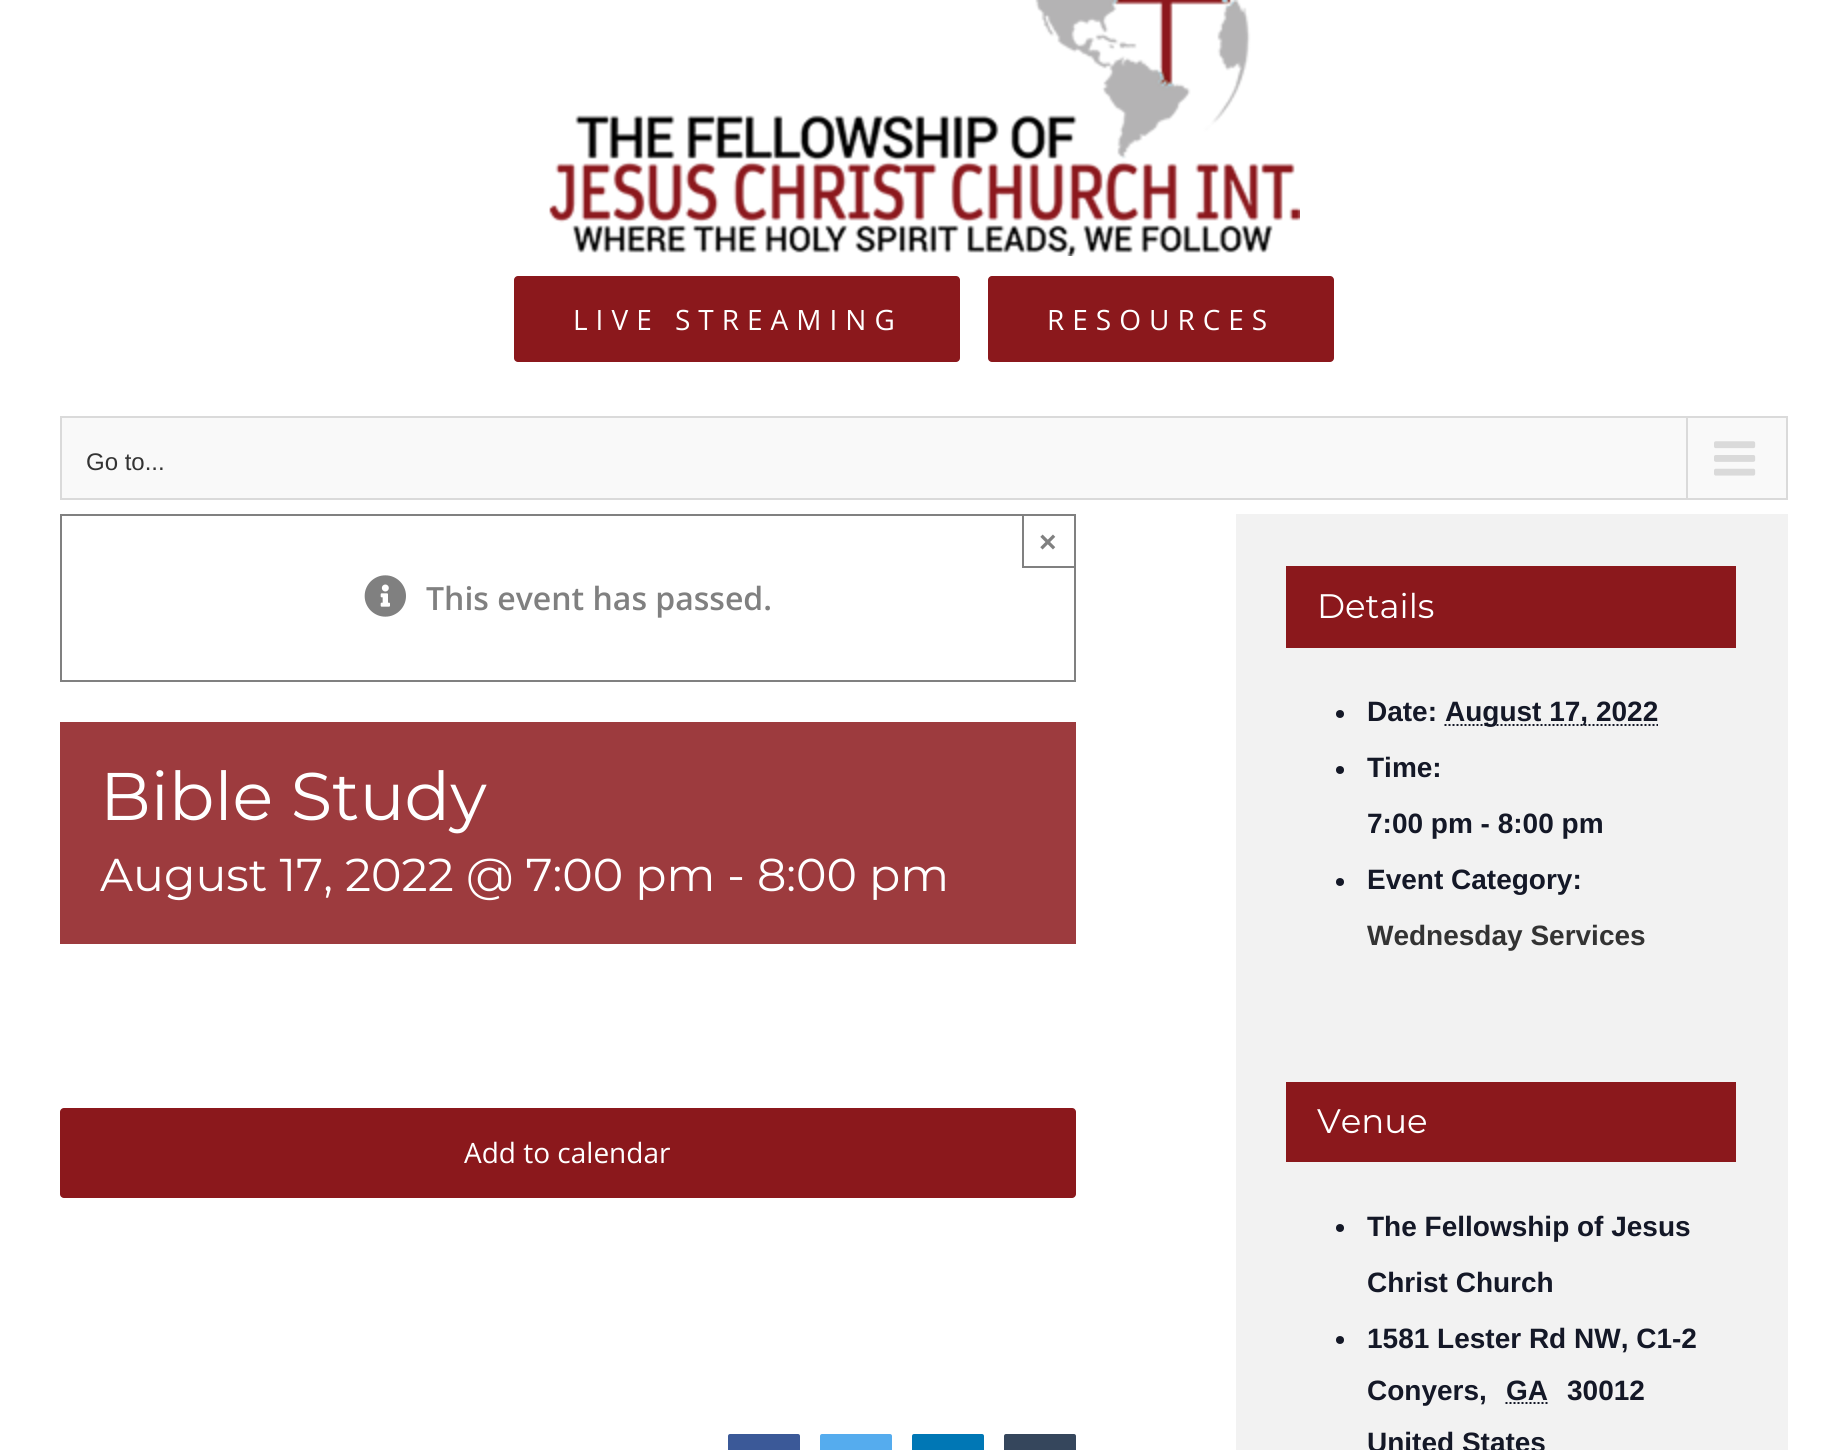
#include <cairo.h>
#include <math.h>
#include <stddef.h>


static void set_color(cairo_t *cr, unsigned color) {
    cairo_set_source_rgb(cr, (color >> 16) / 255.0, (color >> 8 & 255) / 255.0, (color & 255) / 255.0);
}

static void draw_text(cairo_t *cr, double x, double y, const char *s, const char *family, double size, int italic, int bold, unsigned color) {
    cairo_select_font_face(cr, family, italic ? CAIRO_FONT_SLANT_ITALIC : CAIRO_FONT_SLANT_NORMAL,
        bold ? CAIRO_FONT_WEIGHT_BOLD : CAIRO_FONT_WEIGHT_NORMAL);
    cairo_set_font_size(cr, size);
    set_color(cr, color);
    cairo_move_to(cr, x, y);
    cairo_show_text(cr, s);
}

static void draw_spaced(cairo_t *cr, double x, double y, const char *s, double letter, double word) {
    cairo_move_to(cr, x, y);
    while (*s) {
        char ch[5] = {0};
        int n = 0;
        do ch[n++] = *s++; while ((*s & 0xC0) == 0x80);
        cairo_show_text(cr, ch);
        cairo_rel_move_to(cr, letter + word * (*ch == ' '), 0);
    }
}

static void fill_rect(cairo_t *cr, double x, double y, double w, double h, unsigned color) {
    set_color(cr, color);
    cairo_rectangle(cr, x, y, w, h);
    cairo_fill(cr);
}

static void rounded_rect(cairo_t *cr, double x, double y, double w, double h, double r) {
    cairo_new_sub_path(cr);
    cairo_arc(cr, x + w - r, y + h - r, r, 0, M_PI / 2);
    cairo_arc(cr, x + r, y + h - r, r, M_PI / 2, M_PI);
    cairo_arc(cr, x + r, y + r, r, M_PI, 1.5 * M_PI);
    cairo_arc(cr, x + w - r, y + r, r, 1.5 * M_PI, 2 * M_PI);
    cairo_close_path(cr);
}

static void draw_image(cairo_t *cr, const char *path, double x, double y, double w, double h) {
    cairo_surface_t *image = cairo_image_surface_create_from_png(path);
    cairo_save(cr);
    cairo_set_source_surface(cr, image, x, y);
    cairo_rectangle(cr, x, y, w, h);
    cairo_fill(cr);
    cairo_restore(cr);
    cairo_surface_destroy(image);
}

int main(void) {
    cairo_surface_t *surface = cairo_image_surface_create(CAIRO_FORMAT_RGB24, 1848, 1450);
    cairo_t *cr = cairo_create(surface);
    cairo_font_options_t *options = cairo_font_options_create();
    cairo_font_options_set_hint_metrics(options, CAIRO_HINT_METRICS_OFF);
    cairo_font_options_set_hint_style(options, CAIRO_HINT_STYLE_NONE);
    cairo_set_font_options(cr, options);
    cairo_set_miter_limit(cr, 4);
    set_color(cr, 0xFFFFFF);
    cairo_paint(cr);
    draw_image(cr, "assets/img1.png", 549, 0, 751, 256);
    set_color(cr, 0x8B181C);
    rounded_rect(cr, 514, 276, 446, 86, 4);
    cairo_fill(cr);
    cairo_select_font_face(cr, "Open Sans", CAIRO_FONT_SLANT_NORMAL, CAIRO_FONT_WEIGHT_NORMAL);
    cairo_set_font_size(cr, 28);
    set_color(cr, 0xFFFFFF);
    draw_spaced(cr, 573, 330, "LIVE STREAMING", 8, 0);
    set_color(cr, 0x8B181C);
    rounded_rect(cr, 988, 276, 346, 86, 4);
    cairo_fill(cr);
    set_color(cr, 0xFFFFFF);
    draw_spaced(cr, 1047, 330, "RESOURCES", 8, 0);
    set_color(cr, 0xF9F9F9);
    cairo_rectangle(cr, 61, 417, 1726, 82);
    cairo_fill_preserve(cr);
    set_color(cr, 0xDADADA);
    cairo_stroke(cr);
    draw_text(cr, 86, 470, "Go to...", "Liberation Sans", 24, 0, 0, 0x333333);
    fill_rect(cr, 1686, 418, 2, 80, 0xDADADA);
    draw_image(cr, "assets/img2.png", 1714, 441, 42, 35);
    cairo_rectangle(cr, 61, 515, 1014, 166);
    set_color(cr, 0x808080);
    cairo_stroke(cr);
    cairo_rectangle(cr, 1023, 515, 52, 52);
    cairo_stroke(cr);
    draw_text(cr, 1039, 552, "×", "Liberation Sans", 30, 0, 1, 0x808080);
    draw_image(cr, "assets/img3.png", 364, 575, 42, 42);
    draw_text(cr, 426, 610, "This event has passed.", "Open Sans SemiBold", 32, 0, 0, 0x808080);
    fill_rect(cr, 60, 722, 1016, 222, 0x9D3B3E);
    draw_text(cr, 100, 820, "Bible Study", "Montserrat Thin", 67.25, 0, 0, 0xFFFFFF);
    draw_text(cr, 100, 891, "August 17, 2022 @ 7:00 pm - 8:00 pm", "Montserrat Thin", 46, 0, 0, 0xFFFFFF);
    set_color(cr, 0x8B181C);
    rounded_rect(cr, 60, 1108, 1016, 90, 4);
    cairo_fill(cr);
    draw_text(cr, 464, 1163, "Add to calendar", "Open Sans", 28, 0, 0, 0xFFFFFF);
    set_color(cr, 0x3B5998);
    rounded_rect(cr, 729, 1435, 70, 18, 1);
    cairo_fill_preserve(cr);
    cairo_stroke(cr);
    set_color(cr, 0x55ACEE);
    rounded_rect(cr, 821, 1435, 70, 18, 1);
    cairo_fill_preserve(cr);
    cairo_stroke(cr);
    set_color(cr, 0x0077B5);
    rounded_rect(cr, 913, 1435, 70, 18, 1);
    cairo_fill_preserve(cr);
    cairo_stroke(cr);
    set_color(cr, 0x35465C);
    rounded_rect(cr, 1005, 1435, 70, 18, 1);
    cairo_fill_preserve(cr);
    cairo_stroke(cr);
    fill_rect(cr, 1236, 514, 552, 936, 0xF2F2F2);
    fill_rect(cr, 1286, 566, 450, 82, 0x8B181C);
    draw_text(cr, 1317, 618, "Details", "Montserrat Thin", 34, 0, 0, 0xFFFFFF);
    set_color(cr, 0x141827);
    cairo_new_path(cr);
    cairo_arc(cr, 1340, 714, 4, 0, 2 * M_PI);
    cairo_fill(cr);
    draw_text(cr, 1367, 721, "Date:", "Liberation Sans", 28, 0, 1, 0x141827);
    cairo_new_path(cr);
    cairo_move_to(cr, 1444.5, 725);
    cairo_line_to(cr, 1658, 725);
    cairo_set_dash(cr, (double[]){2, 2}, 2, 0);
    cairo_stroke(cr);
    draw_text(cr, 1445, 721, "August 17, 2022", "Liberation Sans", 28, 0, 1, 0x141827);
    cairo_new_path(cr);
    cairo_arc(cr, 1340, 770, 4, 0, 2 * M_PI);
    cairo_fill(cr);
    draw_text(cr, 1367, 777, "Time:", "Liberation Sans", 28, 0, 1, 0x141827);
    draw_text(cr, 1367, 833, "7:00 pm - 8:00 pm", "Liberation Sans", 28, 0, 1, 0x141827);
    cairo_new_path(cr);
    cairo_arc(cr, 1340, 882, 4, 0, 2 * M_PI);
    cairo_fill(cr);
    draw_text(cr, 1367, 889, "Event Category:", "Liberation Sans", 28, 0, 1, 0x141827);
    draw_text(cr, 1367, 945, "Wednesday Services", "Liberation Sans", 28, 0, 1, 0x333333);
    fill_rect(cr, 1286, 1082, 450, 80, 0x8B181C);
    draw_text(cr, 1317, 1133, "Venue", "Montserrat Thin", 34, 0, 0, 0xFFFFFF);
    set_color(cr, 0x141827);
    cairo_new_path(cr);
    cairo_arc(cr, 1340, 1228, 4, 0, 2 * M_PI);
    cairo_fill(cr);
    draw_text(cr, 1367, 1236, "The Fellowship of Jesus", "Liberation Sans", 28, 0, 1, 0x141827);
    draw_text(cr, 1367, 1292, "Christ Church", "Liberation Sans", 28, 0, 1, 0x141827);
    cairo_new_path(cr);
    cairo_arc(cr, 1340, 1340, 4, 0, 2 * M_PI);
    cairo_fill(cr);
    draw_text(cr, 1367, 1348, "1581 Lester Rd NW, C1-2", "Liberation Sans", 28, 0, 1, 0x141827);
    draw_text(cr, 1367, 1400, "Conyers,", "Liberation Sans", 28, 0, 1, 0x141827);
    draw_text(cr, 1506, 1400, "GA", "Liberation Sans", 28, 0, 1, 0x141827);
    cairo_new_path(cr);
    cairo_move_to(cr, 1505.5, 1403);
    cairo_line_to(cr, 1547.5, 1403);
    cairo_stroke(cr);
    draw_text(cr, 1567, 1400, "30012", "Liberation Sans", 28, 0, 1, 0x141827);
    draw_text(cr, 1367, 1452, "United States", "Liberation Sans", 28, 0, 1, 0x141827);
    cairo_surface_write_to_png(surface, "output.png");
    cairo_font_options_destroy(options);
    cairo_destroy(cr);
    cairo_surface_destroy(surface);
    return 0;
}
